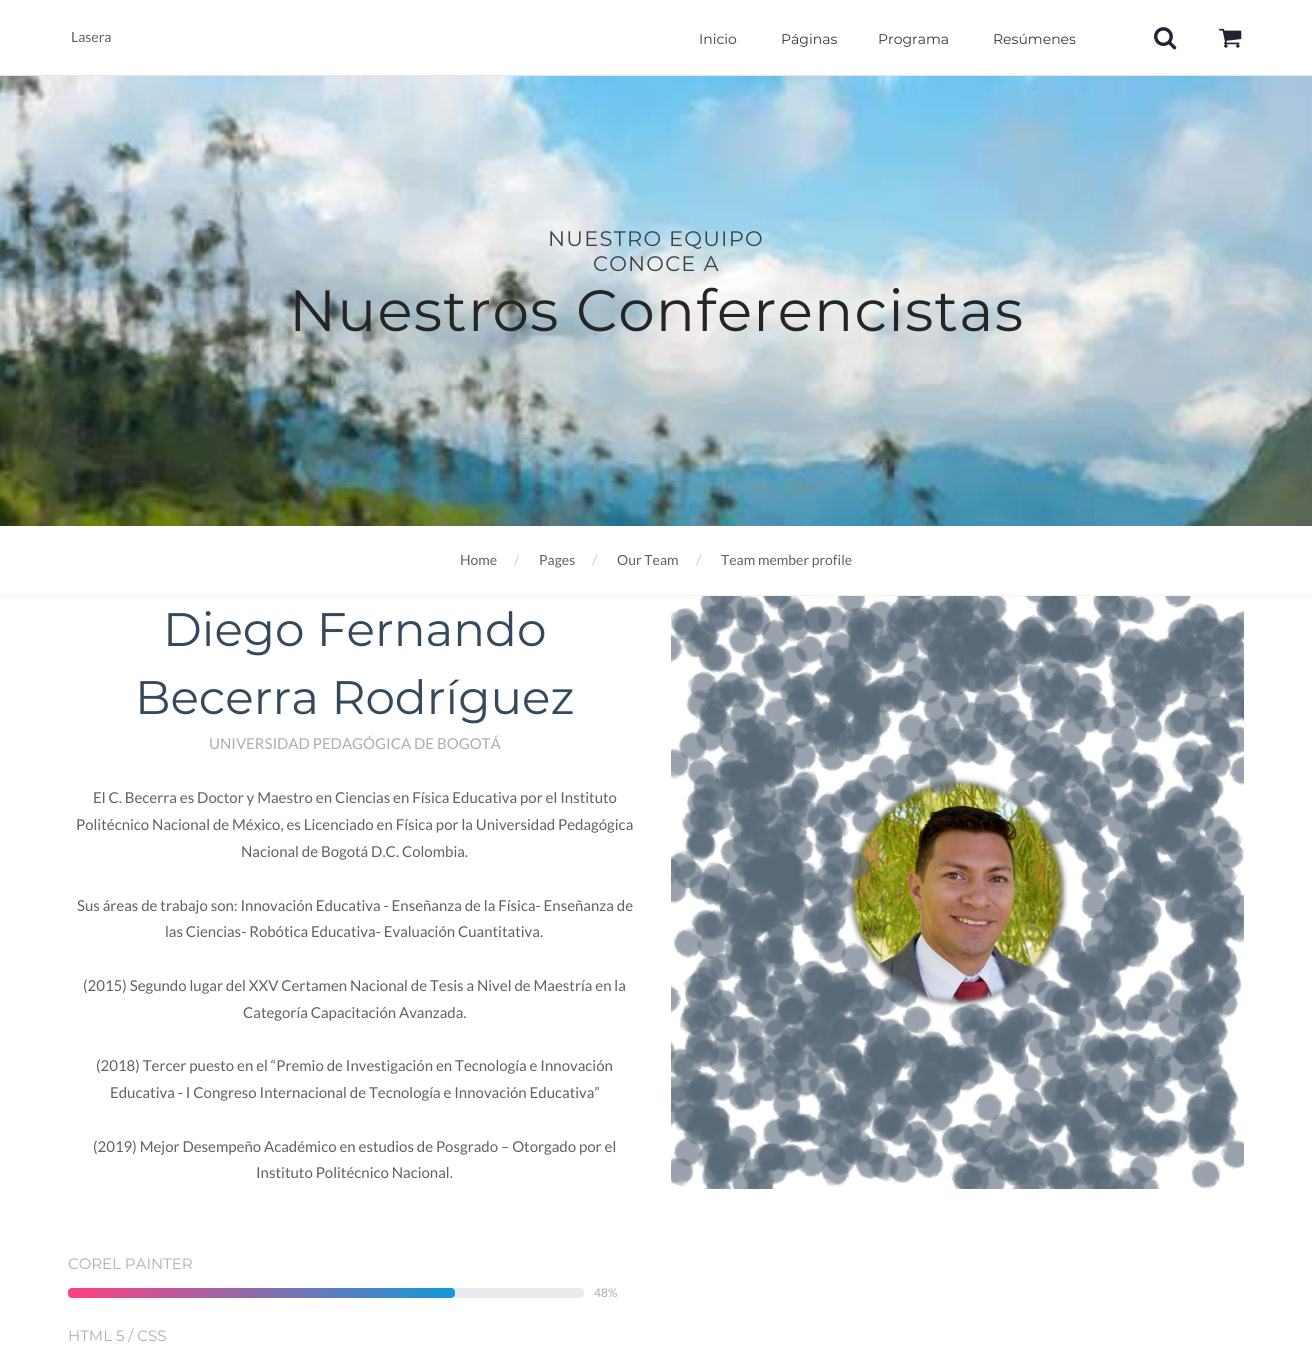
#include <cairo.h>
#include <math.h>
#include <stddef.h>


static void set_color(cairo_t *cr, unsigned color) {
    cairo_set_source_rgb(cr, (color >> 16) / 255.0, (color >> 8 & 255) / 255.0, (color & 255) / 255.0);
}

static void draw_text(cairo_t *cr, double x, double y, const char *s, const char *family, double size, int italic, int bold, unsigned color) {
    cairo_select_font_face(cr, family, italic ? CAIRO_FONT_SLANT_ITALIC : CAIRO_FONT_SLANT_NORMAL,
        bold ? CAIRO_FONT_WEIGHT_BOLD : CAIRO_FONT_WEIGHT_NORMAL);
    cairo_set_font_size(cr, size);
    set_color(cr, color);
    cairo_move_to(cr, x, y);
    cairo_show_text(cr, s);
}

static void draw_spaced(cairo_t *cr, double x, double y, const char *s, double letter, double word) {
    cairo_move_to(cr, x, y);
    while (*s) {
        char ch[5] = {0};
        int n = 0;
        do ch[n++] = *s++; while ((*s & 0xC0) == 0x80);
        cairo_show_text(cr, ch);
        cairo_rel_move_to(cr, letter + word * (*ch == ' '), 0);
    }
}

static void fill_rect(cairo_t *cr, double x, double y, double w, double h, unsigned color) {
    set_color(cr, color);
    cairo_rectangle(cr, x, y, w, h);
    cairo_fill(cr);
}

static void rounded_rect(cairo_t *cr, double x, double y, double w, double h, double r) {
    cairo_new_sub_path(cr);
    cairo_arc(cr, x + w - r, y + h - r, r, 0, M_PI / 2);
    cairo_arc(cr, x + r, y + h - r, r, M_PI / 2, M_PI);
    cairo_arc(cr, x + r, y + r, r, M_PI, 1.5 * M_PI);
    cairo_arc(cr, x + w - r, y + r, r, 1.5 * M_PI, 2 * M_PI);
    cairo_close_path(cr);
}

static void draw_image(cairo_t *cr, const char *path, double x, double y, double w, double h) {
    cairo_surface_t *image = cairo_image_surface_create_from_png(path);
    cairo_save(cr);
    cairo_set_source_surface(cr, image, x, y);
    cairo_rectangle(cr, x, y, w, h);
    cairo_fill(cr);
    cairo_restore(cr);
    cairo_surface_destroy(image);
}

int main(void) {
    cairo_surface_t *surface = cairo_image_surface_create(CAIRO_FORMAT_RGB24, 1312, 1346);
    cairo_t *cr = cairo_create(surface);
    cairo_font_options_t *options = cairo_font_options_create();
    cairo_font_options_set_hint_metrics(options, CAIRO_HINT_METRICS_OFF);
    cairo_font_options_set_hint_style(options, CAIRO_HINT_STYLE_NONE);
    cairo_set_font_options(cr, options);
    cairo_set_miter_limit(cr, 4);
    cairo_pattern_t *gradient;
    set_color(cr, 0xFFFFFF);
    cairo_paint(cr);
    fill_rect(cr, 0, 75, 1312, 1, 0xE6E6E6);
    draw_text(cr, 71, 42, "Lasera", "Lato", 14, 0, 0, 0x616161);
    draw_text(cr, 699, 44, "Inicio", "Montserrat", 14, 0, 0, 0x343842);
    draw_text(cr, 781, 44, "Páginas", "Montserrat", 14, 0, 0, 0x343842);
    draw_text(cr, 878, 44, "Programa", "Montserrat", 14, 0, 0, 0x343842);
    draw_text(cr, 993, 44, "Resúmenes", "Montserrat", 14, 0, 0, 0x343842);
    draw_image(cr, "assets/img1.png", 1154, 27, 23, 23);
    draw_image(cr, "assets/img2.png", 1219, 28, 23, 20);
    draw_image(cr, "assets/img3.png", 0, 76, 1312, 450);
    cairo_set_font_size(cr, 21);
    set_color(cr, 0x38424A);
    draw_spaced(cr, 548, 246, "NUESTRO EQUIPO", 1.25, 0);
    draw_spaced(cr, 593, 271, "CONOCE A", 1.25, 0);
    cairo_set_font_size(cr, 58);
    set_color(cr, 0x252525);
    draw_spaced(cr, 289, 331, "Nuestros Conferencistas", 1.2, 0);
    fill_rect(cr, 0, 595, 1312, 1, 0xF3F3ED);
    draw_text(cr, 460, 565, "Home", "Lato", 14, 0, 0, 0x616161);
    draw_text(cr, 514, 565, "/", "Lato", 14, 0, 0, 0xCCCCCC);
    draw_text(cr, 539, 565, "Pages", "Lato", 14, 0, 0, 0x616161);
    draw_text(cr, 592, 565, "/", "Lato", 14, 0, 0, 0xCCCCCC);
    draw_text(cr, 617, 565, "Our Team", "Lato", 14, 0, 0, 0x616161);
    draw_text(cr, 696, 565, "/", "Lato", 14, 0, 0, 0xCCCCCC);
    draw_text(cr, 721, 565, "Team member profile", "Lato", 14, 0, 0, 0x616161);
    draw_text(cr, 163, 646, "Diego Fernando", "Montserrat", 47, 0, 0, 0x34495E);
    draw_text(cr, 135, 714, "Becerra Rodríguez", "Montserrat", 47, 0, 0, 0x34495E);
    draw_text(cr, 209, 749, "UNIVERSIDAD PEDAGÓGICA DE BOGOTÁ", "Lato", 15, 0, 0, 0xA7B0B4);
    draw_text(cr, 93, 803, "El C. Becerra es Doctor y Maestro en Ciencias en Física Educativa por el Instituto", "Lato", 15, 0, 0, 0x616161);
    draw_text(cr, 76, 830, "Politécnico Nacional de México, es Licenciado en Física por la Universidad Pedagógica", "Lato", 15, 0, 0, 0x616161);
    draw_text(cr, 241, 857, "Nacional de Bogotá D.C. Colombia.", "Lato", 15, 0, 0, 0x616161);
    draw_text(cr, 77, 911, "Sus áreas de trabajo son: Innovación Educativa - Enseñanza de la Física- Enseñanza de", "Lato", 15, 0, 0, 0x616161);
    draw_text(cr, 165, 937, "las Ciencias- Robótica Educativa- Evaluación Cuantitativa.", "Lato", 15, 0, 0, 0x616161);
    draw_text(cr, 83, 991, "(2015) Segundo lugar del XXV Certamen Nacional de Tesis a Nivel de Maestría en la", "Lato", 15, 0, 0, 0x616161);
    draw_text(cr, 243, 1018, "Categoría Capacitación Avanzada.", "Lato", 15, 0, 0, 0x616161);
    draw_text(cr, 96, 1071, "(2018) Tercer puesto en el “Premio de Investigación en Tecnología e Innovación", "Lato", 15, 0, 0, 0x616161);
    draw_text(cr, 110, 1098, "Educativa - I Congreso Internacional de Tecnología e Innovación Educativa”", "Lato", 15, 0, 0, 0x616161);
    draw_text(cr, 93, 1152, "(2019) Mejor Desempeño Académico en estudios de Posgrado – Otorgado por el", "Lato", 15, 0, 0, 0x616161);
    draw_text(cr, 256, 1178, "Instituto Politécnico Nacional.", "Lato", 15, 0, 0, 0x616161);
    draw_text(cr, 68, 1269, "COREL PAINTER", "Montserrat", 15, 0, 0, 0xA7B0B4);
    set_color(cr, 0xE9ECEF);
    rounded_rect(cr, 68, 1288, 516, 10, 4);
    cairo_fill(cr);
    gradient = cairo_pattern_create_linear(68, 1293, 455, 1293);
    cairo_pattern_add_color_stop_rgba(gradient, 0, 1, 0.251, 0.506, 1);
    cairo_pattern_add_color_stop_rgba(gradient, 1, 0.075, 0.596, 0.851, 1);
    cairo_set_source(cr, gradient);
    cairo_pattern_destroy(gradient);
    rounded_rect(cr, 68, 1288, 387, 10, 4);
    cairo_fill(cr);
    draw_text(cr, 594, 1297, "48%", "Lato", 12, 0, 0, 0xA7B0B4);
    draw_text(cr, 68, 1341, "HTML 5 / CSS", "Montserrat", 15, 0, 0, 0xA7B0B4);
    draw_image(cr, "assets/img4.png", 671, 596, 573, 593);
    cairo_surface_write_to_png(surface, "output.png");
    cairo_font_options_destroy(options);
    cairo_destroy(cr);
    cairo_surface_destroy(surface);
    return 0;
}
